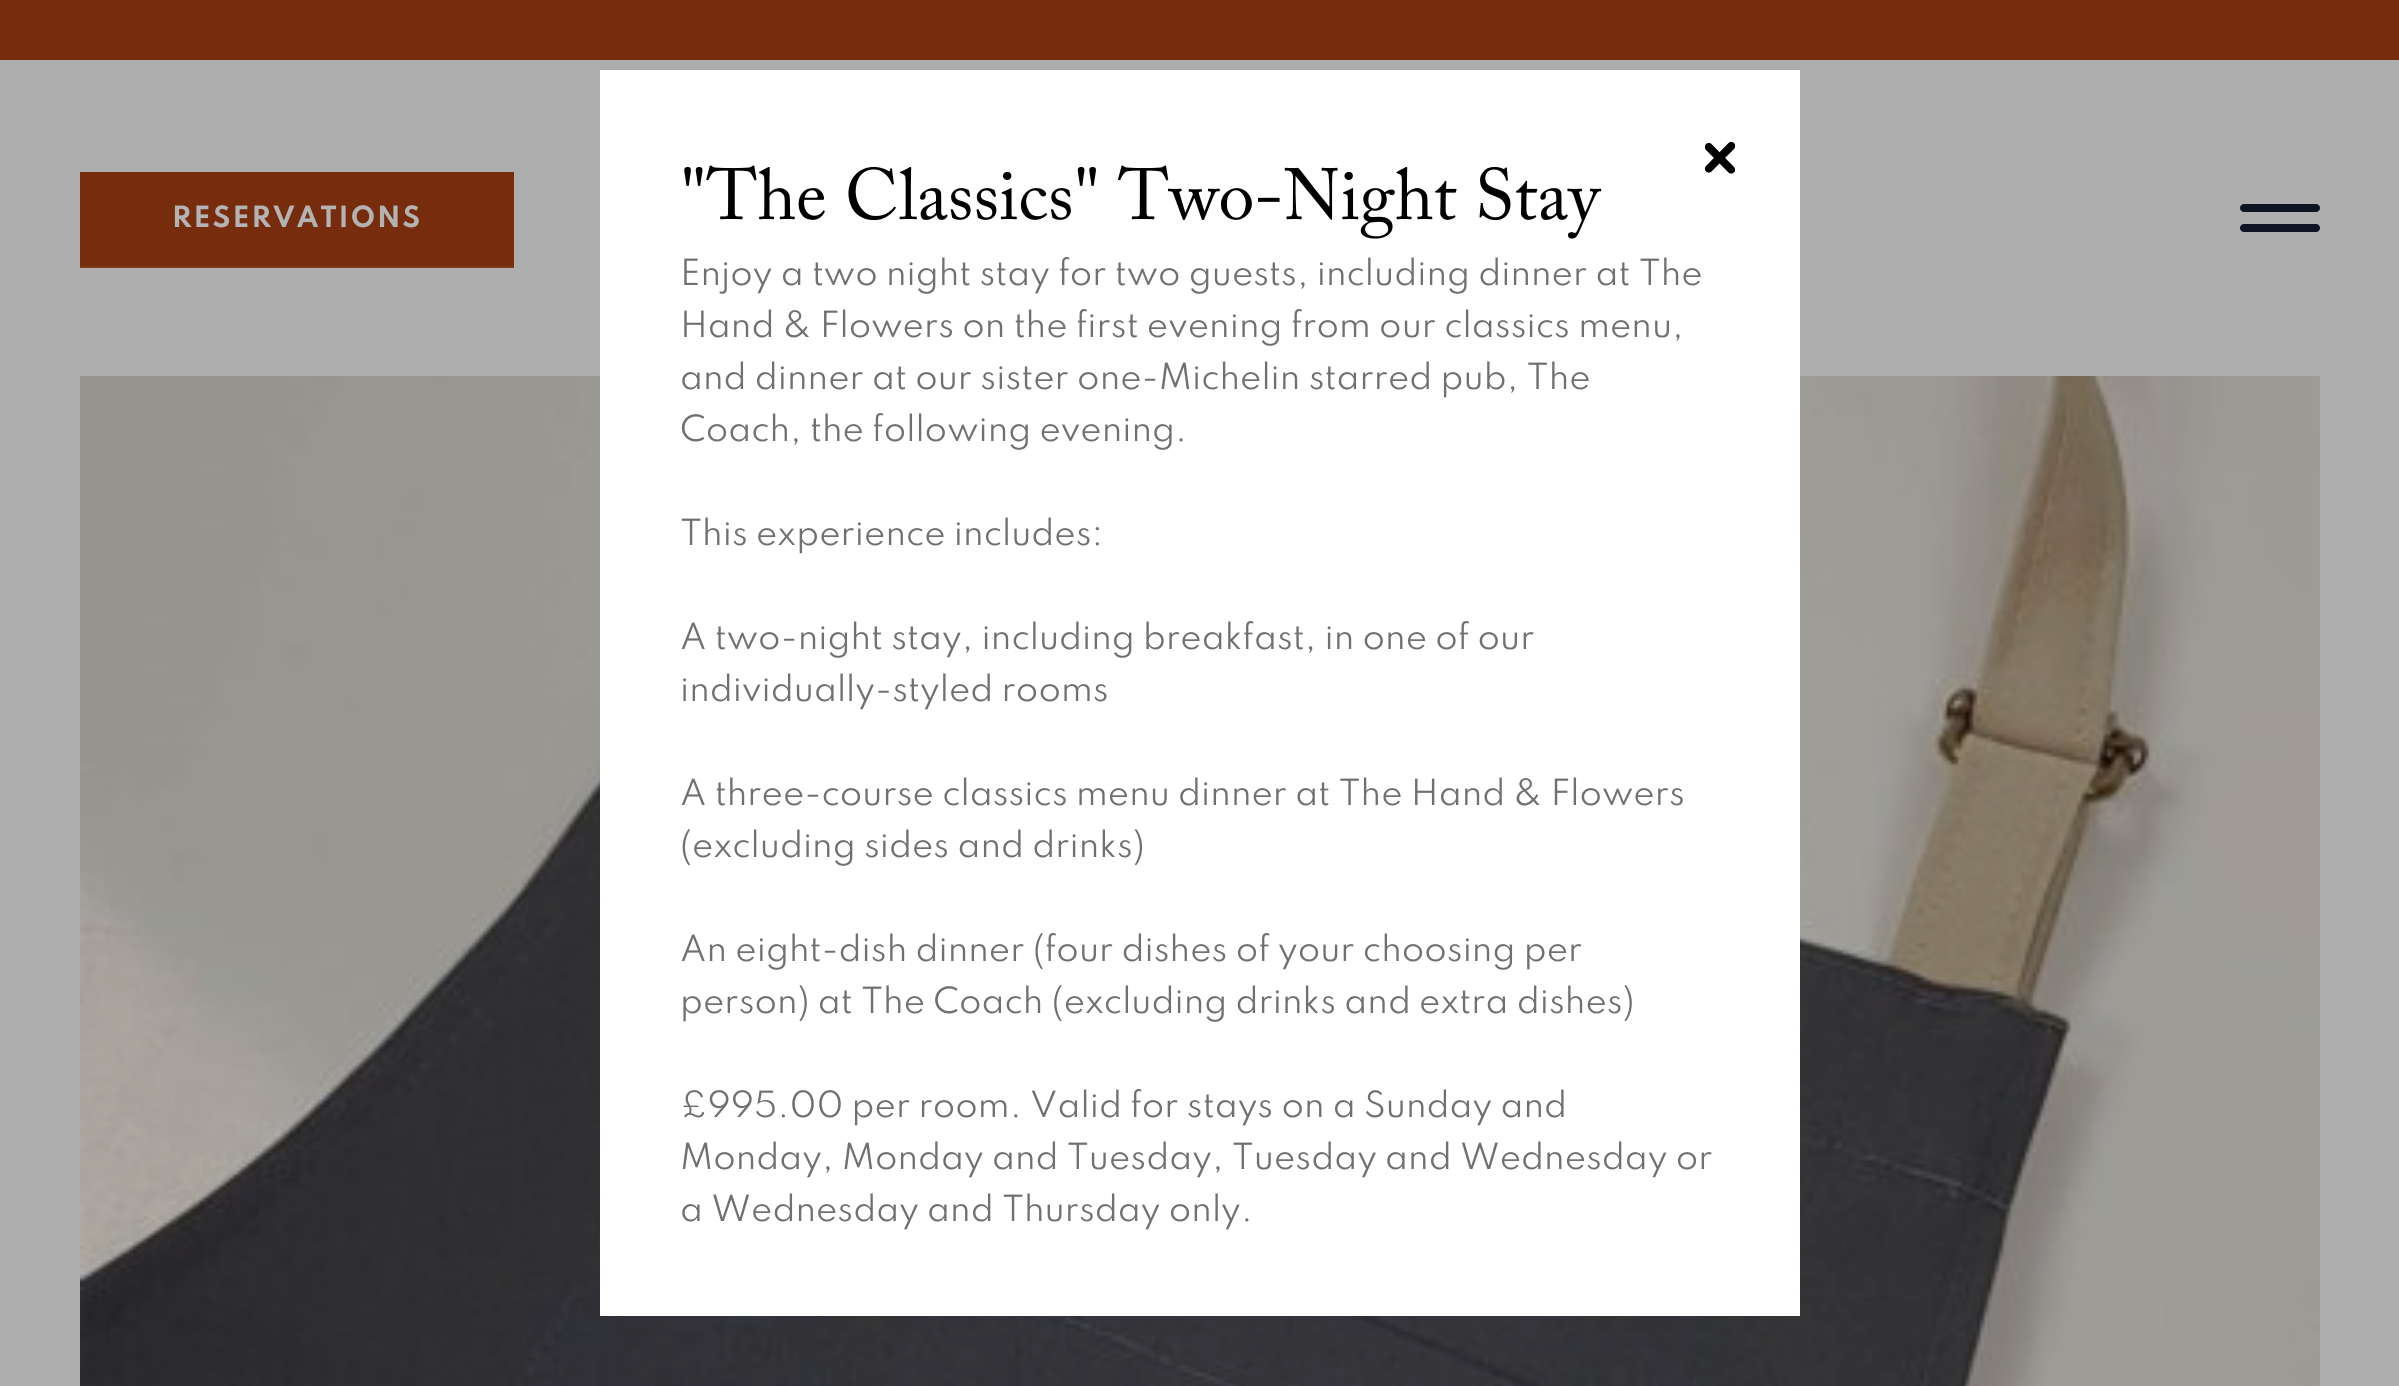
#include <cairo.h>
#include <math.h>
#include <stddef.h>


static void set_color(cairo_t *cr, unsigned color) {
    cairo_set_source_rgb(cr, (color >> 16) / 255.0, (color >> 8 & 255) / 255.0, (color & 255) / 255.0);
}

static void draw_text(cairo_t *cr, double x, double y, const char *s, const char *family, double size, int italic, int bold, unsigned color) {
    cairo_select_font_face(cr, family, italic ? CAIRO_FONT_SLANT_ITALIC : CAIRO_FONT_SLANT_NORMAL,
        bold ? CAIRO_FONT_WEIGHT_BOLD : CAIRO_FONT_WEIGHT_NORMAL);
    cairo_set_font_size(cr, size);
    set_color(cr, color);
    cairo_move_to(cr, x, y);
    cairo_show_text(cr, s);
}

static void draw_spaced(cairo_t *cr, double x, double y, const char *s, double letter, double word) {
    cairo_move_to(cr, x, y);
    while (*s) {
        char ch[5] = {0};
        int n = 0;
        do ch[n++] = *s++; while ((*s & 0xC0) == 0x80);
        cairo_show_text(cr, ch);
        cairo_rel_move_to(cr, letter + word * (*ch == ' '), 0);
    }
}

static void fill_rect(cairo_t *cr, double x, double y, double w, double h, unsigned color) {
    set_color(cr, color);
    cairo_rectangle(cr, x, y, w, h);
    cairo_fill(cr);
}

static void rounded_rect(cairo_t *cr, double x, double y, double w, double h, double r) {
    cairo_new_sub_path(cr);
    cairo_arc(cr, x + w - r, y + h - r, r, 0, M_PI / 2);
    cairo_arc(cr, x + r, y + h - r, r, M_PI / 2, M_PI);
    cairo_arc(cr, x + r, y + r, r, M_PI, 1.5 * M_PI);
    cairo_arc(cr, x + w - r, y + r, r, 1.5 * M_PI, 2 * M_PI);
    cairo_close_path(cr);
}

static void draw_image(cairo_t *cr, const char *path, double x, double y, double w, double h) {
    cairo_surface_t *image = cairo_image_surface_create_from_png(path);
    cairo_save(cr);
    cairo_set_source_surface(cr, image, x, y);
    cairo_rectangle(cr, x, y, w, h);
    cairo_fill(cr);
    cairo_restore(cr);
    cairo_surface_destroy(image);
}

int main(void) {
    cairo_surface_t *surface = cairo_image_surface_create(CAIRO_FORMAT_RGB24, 2399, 1386);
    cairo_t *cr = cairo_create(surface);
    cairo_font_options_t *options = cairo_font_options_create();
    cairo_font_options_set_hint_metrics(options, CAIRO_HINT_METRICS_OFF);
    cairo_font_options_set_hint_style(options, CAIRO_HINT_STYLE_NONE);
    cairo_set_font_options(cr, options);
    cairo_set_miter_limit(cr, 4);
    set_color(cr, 0xAEADAD);
    cairo_paint(cr);
    fill_rect(cr, 0, 0, 2399, 60, 0x762C0D);
    fill_rect(cr, 80, 172, 434, 94, 0x762C0D);
    cairo_select_font_face(cr, "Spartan", CAIRO_FONT_SLANT_NORMAL, CAIRO_FONT_WEIGHT_BOLD);
    cairo_set_font_size(cr, 26);
    set_color(cr, 0xB3B3B3);
    draw_spaced(cr, 172, 227, "RESERVATIONS", 2, 0);
    fill_rect(cr, 80, 266, 434, 2, 0x7D391D);
    set_color(cr, 0x0E1424);
    rounded_rect(cr, 2240, 204, 80, 8, 4);
    cairo_fill(cr);
    rounded_rect(cr, 2240, 224, 80, 8, 4);
    cairo_fill(cr);
    draw_image(cr, "assets/img1.png", 80, 376, 2240, 1010);
    fill_rect(cr, 600, 70, 1200, 1246, 0xFFFFFF);
    set_color(cr, 0x000000);
    cairo_new_path(cr);
    cairo_move_to(cr, 1711.5, 144);
    cairo_line_to(cr, 1734, 167);
    cairo_curve_to(cr, 1735.5, 168.5, 1735.5, 171, 1734, 172.5);
    cairo_curve_to(cr, 1732.5, 174, 1730, 174, 1728.5, 172.5);
    cairo_line_to(cr, 1706, 150);
    cairo_curve_to(cr, 1704.5, 148.5, 1704.5, 145.5, 1706, 144);
    cairo_curve_to(cr, 1707.5, 142.5, 1710, 142.5, 1711.5, 144);
    cairo_close_path(cr);
    cairo_fill(cr);
    cairo_new_path(cr);
    cairo_move_to(cr, 1706, 166);
    cairo_line_to(cr, 1728.5, 143);
    cairo_curve_to(cr, 1730, 141.5, 1732.5, 141.5, 1734, 143);
    cairo_curve_to(cr, 1735.5, 144.5, 1735.5, 147.5, 1734, 149);
    cairo_line_to(cr, 1711.5, 171.5);
    cairo_curve_to(cr, 1710, 173, 1707.5, 173, 1706, 171.5);
    cairo_curve_to(cr, 1704.5, 170, 1704.5, 167.5, 1706, 166);
    cairo_close_path(cr);
    cairo_fill(cr);
    draw_text(cr, 680, 219, "\"The Classics\" Two-Night Stay", "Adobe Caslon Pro", 72, 0, 0, 0x000000);
    draw_text(cr, 680, 285, "Enjoy a two night stay for two guests, including dinner at The", "Spartan", 32, 0, 0, 0x707070);
    draw_text(cr, 680, 337, "Hand & Flowers on the first evening from our classics menu,", "Spartan", 32, 0, 0, 0x707070);
    draw_text(cr, 680, 389, "and dinner at our sister one-Michelin starred pub, The", "Spartan", 32, 0, 0, 0x707070);
    draw_text(cr, 680, 441, "Coach, the following evening.", "Spartan", 32, 0, 0, 0x707070);
    draw_text(cr, 680, 545, "This experience includes:", "Spartan", 32, 0, 0, 0x707070);
    draw_text(cr, 680, 649, "A two-night stay, including breakfast, in one of our", "Spartan", 32, 0, 0, 0x707070);
    draw_text(cr, 680, 701, "individually-styled rooms", "Spartan", 32, 0, 0, 0x707070);
    draw_text(cr, 680, 805, "A three-course classics menu dinner at The Hand & Flowers", "Spartan", 32, 0, 0, 0x707070);
    draw_text(cr, 680, 857, "(excluding sides and drinks)", "Spartan", 32, 0, 0, 0x707070);
    draw_text(cr, 680, 961, "An eight-dish dinner (four dishes of your choosing per", "Spartan", 32, 0, 0, 0x707070);
    draw_text(cr, 680, 1013, "person) at The Coach (excluding drinks and extra dishes)", "Spartan", 32, 0, 0, 0x707070);
    draw_text(cr, 680, 1117, "£995.00 per room. Valid for stays on a Sunday and", "Spartan", 32, 0, 0, 0x707070);
    draw_text(cr, 680, 1169, "Monday, Monday and Tuesday, Tuesday and Wednesday or", "Spartan", 32, 0, 0, 0x707070);
    draw_text(cr, 680, 1221, "a Wednesday and Thursday only.", "Spartan", 32, 0, 0, 0x707070);
    cairo_surface_write_to_png(surface, "output.png");
    cairo_font_options_destroy(options);
    cairo_destroy(cr);
    cairo_surface_destroy(surface);
    return 0;
}
